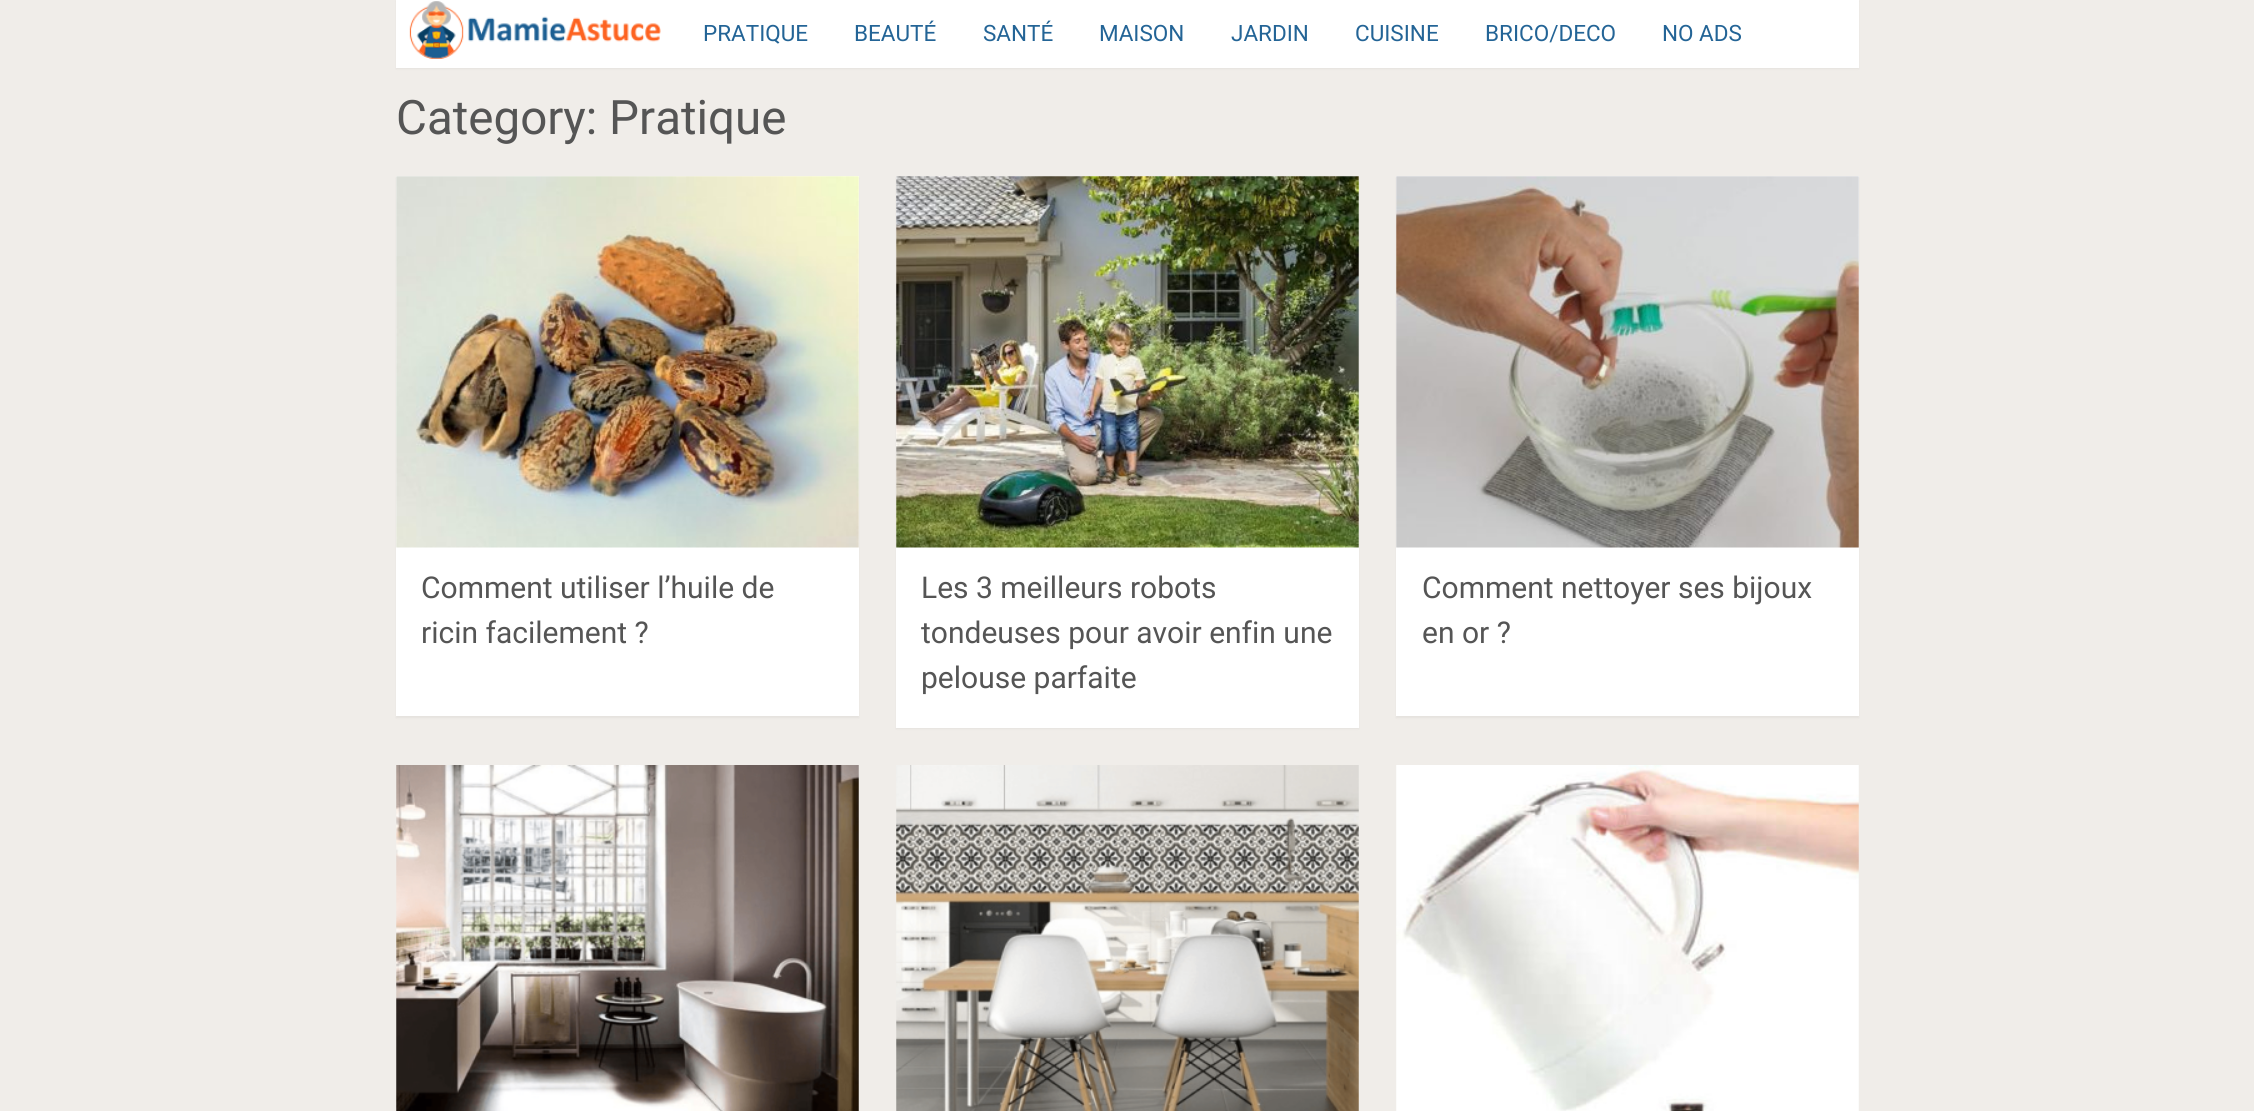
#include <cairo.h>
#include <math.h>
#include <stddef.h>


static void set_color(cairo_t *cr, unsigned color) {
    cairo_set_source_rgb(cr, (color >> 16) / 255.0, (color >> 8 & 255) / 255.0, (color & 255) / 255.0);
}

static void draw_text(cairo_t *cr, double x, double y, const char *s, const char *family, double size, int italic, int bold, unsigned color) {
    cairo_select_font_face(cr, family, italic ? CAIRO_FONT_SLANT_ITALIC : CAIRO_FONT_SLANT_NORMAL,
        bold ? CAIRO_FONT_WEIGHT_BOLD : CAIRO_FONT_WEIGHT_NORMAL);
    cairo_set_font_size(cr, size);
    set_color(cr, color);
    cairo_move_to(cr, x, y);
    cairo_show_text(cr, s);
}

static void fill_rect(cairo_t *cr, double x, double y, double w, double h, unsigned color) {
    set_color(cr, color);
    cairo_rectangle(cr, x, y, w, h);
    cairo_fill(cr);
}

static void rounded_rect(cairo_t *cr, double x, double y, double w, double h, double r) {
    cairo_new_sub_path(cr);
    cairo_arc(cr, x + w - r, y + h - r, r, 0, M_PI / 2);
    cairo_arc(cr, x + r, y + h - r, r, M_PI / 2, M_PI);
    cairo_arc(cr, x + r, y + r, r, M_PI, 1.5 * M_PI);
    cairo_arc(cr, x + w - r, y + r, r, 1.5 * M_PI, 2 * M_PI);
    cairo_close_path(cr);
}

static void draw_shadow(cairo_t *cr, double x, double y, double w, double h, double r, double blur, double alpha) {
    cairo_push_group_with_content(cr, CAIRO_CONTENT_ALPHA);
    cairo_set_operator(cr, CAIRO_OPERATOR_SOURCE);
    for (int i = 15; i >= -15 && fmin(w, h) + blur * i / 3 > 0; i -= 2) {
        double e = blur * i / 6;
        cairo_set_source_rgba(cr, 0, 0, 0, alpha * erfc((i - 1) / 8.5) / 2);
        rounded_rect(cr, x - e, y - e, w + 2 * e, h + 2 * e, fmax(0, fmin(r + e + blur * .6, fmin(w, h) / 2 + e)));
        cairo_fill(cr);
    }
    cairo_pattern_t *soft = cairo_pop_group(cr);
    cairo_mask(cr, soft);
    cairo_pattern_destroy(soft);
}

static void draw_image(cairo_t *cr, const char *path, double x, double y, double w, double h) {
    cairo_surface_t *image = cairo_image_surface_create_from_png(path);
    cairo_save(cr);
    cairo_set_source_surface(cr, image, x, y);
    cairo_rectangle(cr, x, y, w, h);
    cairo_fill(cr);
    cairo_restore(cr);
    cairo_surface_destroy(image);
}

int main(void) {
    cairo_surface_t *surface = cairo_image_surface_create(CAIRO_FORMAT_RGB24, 2254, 1111);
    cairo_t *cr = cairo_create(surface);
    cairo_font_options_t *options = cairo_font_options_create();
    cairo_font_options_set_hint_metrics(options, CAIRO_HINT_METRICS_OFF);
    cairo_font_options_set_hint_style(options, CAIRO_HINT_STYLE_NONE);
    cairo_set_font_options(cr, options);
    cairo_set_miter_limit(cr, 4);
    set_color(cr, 0xF0EDE9);
    cairo_paint(cr);
    set_color(cr, 0x000000);
    draw_shadow(cr, 396, 1, 1463, 68, 0, 1, 0.05);
    fill_rect(cr, 396, 0, 1463, 68, 0xFFFFFF);
    draw_image(cr, "assets/img1.png", 409, 1, 252, 58);
    draw_text(cr, 703, 41, "PRATIQUE", "Roboto", 22.5, 0, 0, 0x236496);
    draw_text(cr, 854, 41, "BEAUTÉ", "Roboto", 22.5, 0, 0, 0x236496);
    draw_text(cr, 983, 41, "SANTÉ", "Roboto", 22.5, 0, 0, 0x236496);
    draw_text(cr, 1099, 41, "MAISON", "Roboto", 22.5, 0, 0, 0x236496);
    draw_text(cr, 1231, 41, "JARDIN", "Roboto", 22.5, 0, 0, 0x236496);
    draw_text(cr, 1355, 41, "CUISINE", "Roboto", 22.5, 0, 0, 0x236496);
    draw_text(cr, 1485, 41, "BRICO/DECO", "Roboto", 22.5, 0, 0, 0x236496);
    draw_text(cr, 1662, 41, "NO ADS", "Roboto", 22.5, 0, 0, 0x236496);
    draw_text(cr, 396, 134, "Category: Pratique", "Roboto", 47.5, 0, 0, 0x555555);
    set_color(cr, 0x000000);
    draw_shadow(cr, 396, 178, 463, 540, 0, 1, 0.05);
    fill_rect(cr, 396, 176, 463, 540, 0xFFFFFF);
    draw_image(cr, "assets/img2.png", 396, 176, 463, 372);
    draw_text(cr, 421, 598, "Comment utiliser l’huile de", "Roboto", 30, 0, 0, 0x555555);
    draw_text(cr, 421, 643, "ricin facilement ?", "Roboto", 30, 0, 0, 0x555555);
    set_color(cr, 0x000000);
    draw_shadow(cr, 896, 178, 463, 551, 0, 1, 0.05);
    fill_rect(cr, 896, 176, 463, 552, 0xFFFFFF);
    draw_image(cr, "assets/img3.png", 896, 176, 463, 372);
    draw_text(cr, 921, 598, "Les 3 meilleurs robots", "Roboto", 30, 0, 0, 0x555555);
    draw_text(cr, 921, 643, "tondeuses pour avoir enfin une", "Roboto", 30, 0, 0, 0x555555);
    draw_text(cr, 921, 688, "pelouse parfaite", "Roboto", 30, 0, 0, 0x555555);
    set_color(cr, 0x000000);
    draw_shadow(cr, 1396, 178, 463, 540, 0, 1, 0.05);
    fill_rect(cr, 1396, 176, 463, 540, 0xFFFFFF);
    draw_image(cr, "assets/img4.png", 1396, 176, 463, 372);
    draw_text(cr, 1422, 598, "Comment nettoyer ses bijoux", "Roboto", 30, 0, 0, 0x555555);
    draw_text(cr, 1422, 643, "en or ?", "Roboto", 30, 0, 0, 0x555555);
    draw_image(cr, "assets/img5.png", 396, 765, 463, 346);
    draw_image(cr, "assets/img6.png", 896, 765, 463, 346);
    draw_image(cr, "assets/img7.png", 1396, 765, 463, 346);
    cairo_surface_write_to_png(surface, "output.png");
    cairo_font_options_destroy(options);
    cairo_destroy(cr);
    cairo_surface_destroy(surface);
    return 0;
}
